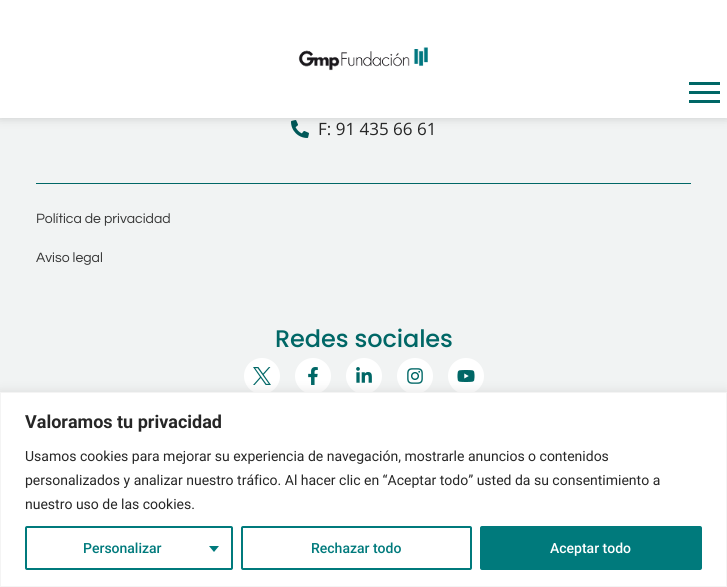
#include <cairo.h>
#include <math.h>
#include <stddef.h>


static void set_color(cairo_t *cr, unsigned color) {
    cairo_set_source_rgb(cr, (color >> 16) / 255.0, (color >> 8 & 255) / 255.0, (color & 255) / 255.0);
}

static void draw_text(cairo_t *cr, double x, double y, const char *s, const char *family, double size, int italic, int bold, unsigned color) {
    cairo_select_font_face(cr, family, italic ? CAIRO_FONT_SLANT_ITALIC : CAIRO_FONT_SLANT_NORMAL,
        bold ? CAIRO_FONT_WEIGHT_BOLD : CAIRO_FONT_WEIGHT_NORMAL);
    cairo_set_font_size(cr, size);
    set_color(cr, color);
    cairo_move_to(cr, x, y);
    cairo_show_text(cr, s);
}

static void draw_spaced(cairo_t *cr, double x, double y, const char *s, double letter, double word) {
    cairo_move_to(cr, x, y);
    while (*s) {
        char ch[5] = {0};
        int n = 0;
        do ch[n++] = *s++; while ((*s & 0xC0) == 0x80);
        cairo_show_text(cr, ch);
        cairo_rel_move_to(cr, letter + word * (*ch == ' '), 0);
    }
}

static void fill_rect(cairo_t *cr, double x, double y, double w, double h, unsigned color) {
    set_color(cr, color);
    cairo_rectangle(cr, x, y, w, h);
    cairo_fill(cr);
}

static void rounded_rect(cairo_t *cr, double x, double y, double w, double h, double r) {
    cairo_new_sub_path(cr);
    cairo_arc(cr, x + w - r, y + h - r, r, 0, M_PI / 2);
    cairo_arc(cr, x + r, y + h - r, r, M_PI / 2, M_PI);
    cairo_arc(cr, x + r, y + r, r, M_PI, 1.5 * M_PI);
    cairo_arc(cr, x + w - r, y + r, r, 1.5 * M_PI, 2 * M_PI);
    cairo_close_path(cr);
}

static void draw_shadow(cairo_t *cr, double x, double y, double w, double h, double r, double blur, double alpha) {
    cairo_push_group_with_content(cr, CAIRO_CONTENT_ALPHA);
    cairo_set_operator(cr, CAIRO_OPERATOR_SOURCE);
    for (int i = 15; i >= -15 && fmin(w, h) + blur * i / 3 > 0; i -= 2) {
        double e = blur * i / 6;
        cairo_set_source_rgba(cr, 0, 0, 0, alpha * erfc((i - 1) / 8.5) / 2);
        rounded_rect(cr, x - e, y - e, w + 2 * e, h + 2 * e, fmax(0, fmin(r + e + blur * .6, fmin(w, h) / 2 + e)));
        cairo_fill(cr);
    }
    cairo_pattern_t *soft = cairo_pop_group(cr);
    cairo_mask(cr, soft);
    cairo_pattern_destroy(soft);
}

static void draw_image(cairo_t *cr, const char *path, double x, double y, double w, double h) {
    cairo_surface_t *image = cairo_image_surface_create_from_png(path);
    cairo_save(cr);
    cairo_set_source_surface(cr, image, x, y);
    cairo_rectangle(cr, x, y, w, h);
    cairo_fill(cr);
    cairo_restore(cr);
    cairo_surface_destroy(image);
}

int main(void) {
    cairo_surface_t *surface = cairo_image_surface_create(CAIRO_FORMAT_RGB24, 727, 587);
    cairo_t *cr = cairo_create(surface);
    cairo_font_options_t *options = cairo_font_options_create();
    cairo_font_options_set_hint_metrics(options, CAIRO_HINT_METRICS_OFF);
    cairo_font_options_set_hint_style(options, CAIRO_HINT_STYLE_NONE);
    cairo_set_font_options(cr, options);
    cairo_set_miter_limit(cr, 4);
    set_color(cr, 0xF1F3F3);
    cairo_paint(cr);
    draw_image(cr, "assets/img2.png", 291, 120, 18, 18);
    set_color(cr, 0x000000);
    draw_shadow(cr, 0, 0, 727, 118, 0, 5, 0.17);
    fill_rect(cr, 0, 0, 727, 118, 0xFFFFFF);
    draw_image(cr, "assets/img1.png", 298, 47, 130, 24);
    fill_rect(cr, 689, 82, 31, 3, 0x006766);
    fill_rect(cr, 689, 91, 31, 3, 0x006766);
    fill_rect(cr, 689, 100, 31, 3, 0x006766);
    draw_text(cr, 318, 135, "F: 91 435 66 61", "Open Sans", 17, 0, 0, 0x262626);
    fill_rect(cr, 36, 183, 655, 1, 0x006766);
    draw_text(cr, 36, 223, "Política de privacidad", "Questrial", 14, 0, 0, 0x353535);
    draw_text(cr, 36, 262, "Aviso legal", "Questrial", 14, 0, 0, 0x353535);
    cairo_select_font_face(cr, "Poppins Medium", CAIRO_FONT_SLANT_NORMAL, CAIRO_FONT_WEIGHT_NORMAL);
    cairo_set_font_size(cr, 24);
    set_color(cr, 0x006766);
    draw_spaced(cr, 275, 347, "Redes sociales", -0.1, 0);
    set_color(cr, 0xFFFFFF);
    cairo_new_path(cr);
    cairo_arc(cr, 262, 376, 18, 0, 2 * M_PI);
    cairo_fill(cr);
    draw_image(cr, "assets/img3.png", 253, 367, 18, 18);
    cairo_arc(cr, 313, 376, 18, 0, 2 * M_PI);
    cairo_fill(cr);
    draw_image(cr, "assets/img4.png", 308, 367, 10, 18);
    cairo_arc(cr, 364, 376, 18, 0, 2 * M_PI);
    cairo_fill(cr);
    draw_image(cr, "assets/img5.png", 356, 367, 16, 16);
    cairo_arc(cr, 415, 376, 18, 0, 2 * M_PI);
    cairo_fill(cr);
    draw_image(cr, "assets/img6.png", 407, 368, 16, 16);
    cairo_arc(cr, 466, 376, 18, 0, 2 * M_PI);
    cairo_fill(cr);
    draw_image(cr, "assets/img7.png", 457, 370, 18, 12);
    set_color(cr, 0xACABAB);
    draw_shadow(cr, 0, 391, 727, 195, 0, 5, 0.3);
    set_color(cr, 0xFFFFFF);
    cairo_rectangle(cr, 0.5, 392.5, 726, 194);
    cairo_fill_preserve(cr);
    set_color(cr, 0xF4F4F4);
    cairo_set_line_width(cr, 1);
    cairo_stroke(cr);
    draw_text(cr, 25, 428, "Valoramos tu privacidad", "Roboto", 18, 0, 1, 0x262626);
    draw_text(cr, 25, 461, "Usamos cookies para mejorar su experiencia de navegación, mostrarle anuncios o contenidos", "Roboto", 14, 0, 0, 0x262626);
    draw_text(cr, 25, 485, "personalizados y analizar nuestro tráfico. Al hacer clic en “Aceptar todo” usted da su consentimiento a", "Roboto", 14, 0, 0, 0x262626);
    draw_text(cr, 25, 509, "nuestro uso de las cookies.", "Roboto", 14, 0, 0, 0x262626);
    rounded_rect(cr, 26, 527, 206, 42, 1);
    set_color(cr, 0x007A7C);
    cairo_set_line_width(cr, 2);
    cairo_stroke(cr);
    draw_text(cr, 83, 553, "Personalizar", "Roboto Medium", 14, 0, 0, 0x007A7C);
    cairo_new_path(cr);
    cairo_move_to(cr, 209, 546);
    cairo_line_to(cr, 219, 546);
    cairo_line_to(cr, 214, 552);
    cairo_close_path(cr);
    cairo_fill(cr);
    rounded_rect(cr, 242, 527, 229, 42, 1);
    cairo_stroke(cr);
    draw_text(cr, 311, 553, "Rechazar todo", "Roboto Medium", 14, 0, 0, 0x007A7C);
    rounded_rect(cr, 481, 527, 220, 42, 1);
    cairo_fill_preserve(cr);
    cairo_stroke(cr);
    draw_text(cr, 550, 553, "Aceptar todo", "Roboto Medium", 14, 0, 0, 0xFFFFFF);
    cairo_surface_write_to_png(surface, "output.png");
    cairo_font_options_destroy(options);
    cairo_destroy(cr);
    cairo_surface_destroy(surface);
    return 0;
}
